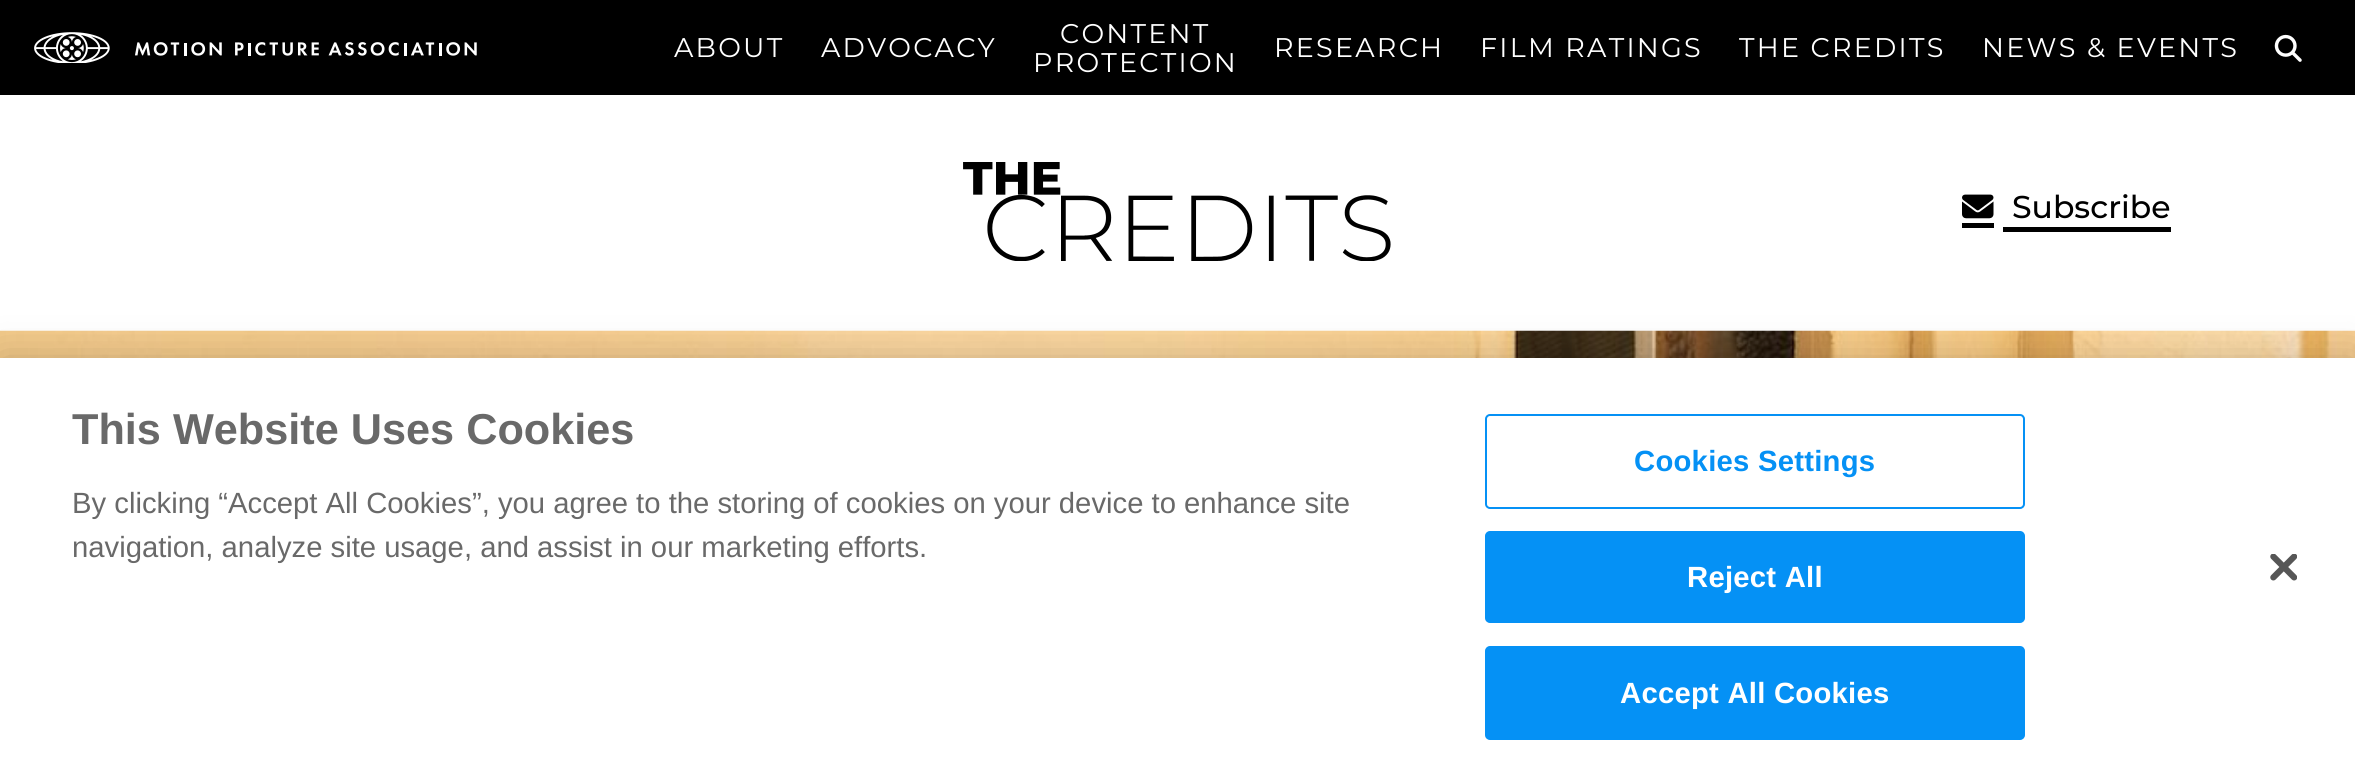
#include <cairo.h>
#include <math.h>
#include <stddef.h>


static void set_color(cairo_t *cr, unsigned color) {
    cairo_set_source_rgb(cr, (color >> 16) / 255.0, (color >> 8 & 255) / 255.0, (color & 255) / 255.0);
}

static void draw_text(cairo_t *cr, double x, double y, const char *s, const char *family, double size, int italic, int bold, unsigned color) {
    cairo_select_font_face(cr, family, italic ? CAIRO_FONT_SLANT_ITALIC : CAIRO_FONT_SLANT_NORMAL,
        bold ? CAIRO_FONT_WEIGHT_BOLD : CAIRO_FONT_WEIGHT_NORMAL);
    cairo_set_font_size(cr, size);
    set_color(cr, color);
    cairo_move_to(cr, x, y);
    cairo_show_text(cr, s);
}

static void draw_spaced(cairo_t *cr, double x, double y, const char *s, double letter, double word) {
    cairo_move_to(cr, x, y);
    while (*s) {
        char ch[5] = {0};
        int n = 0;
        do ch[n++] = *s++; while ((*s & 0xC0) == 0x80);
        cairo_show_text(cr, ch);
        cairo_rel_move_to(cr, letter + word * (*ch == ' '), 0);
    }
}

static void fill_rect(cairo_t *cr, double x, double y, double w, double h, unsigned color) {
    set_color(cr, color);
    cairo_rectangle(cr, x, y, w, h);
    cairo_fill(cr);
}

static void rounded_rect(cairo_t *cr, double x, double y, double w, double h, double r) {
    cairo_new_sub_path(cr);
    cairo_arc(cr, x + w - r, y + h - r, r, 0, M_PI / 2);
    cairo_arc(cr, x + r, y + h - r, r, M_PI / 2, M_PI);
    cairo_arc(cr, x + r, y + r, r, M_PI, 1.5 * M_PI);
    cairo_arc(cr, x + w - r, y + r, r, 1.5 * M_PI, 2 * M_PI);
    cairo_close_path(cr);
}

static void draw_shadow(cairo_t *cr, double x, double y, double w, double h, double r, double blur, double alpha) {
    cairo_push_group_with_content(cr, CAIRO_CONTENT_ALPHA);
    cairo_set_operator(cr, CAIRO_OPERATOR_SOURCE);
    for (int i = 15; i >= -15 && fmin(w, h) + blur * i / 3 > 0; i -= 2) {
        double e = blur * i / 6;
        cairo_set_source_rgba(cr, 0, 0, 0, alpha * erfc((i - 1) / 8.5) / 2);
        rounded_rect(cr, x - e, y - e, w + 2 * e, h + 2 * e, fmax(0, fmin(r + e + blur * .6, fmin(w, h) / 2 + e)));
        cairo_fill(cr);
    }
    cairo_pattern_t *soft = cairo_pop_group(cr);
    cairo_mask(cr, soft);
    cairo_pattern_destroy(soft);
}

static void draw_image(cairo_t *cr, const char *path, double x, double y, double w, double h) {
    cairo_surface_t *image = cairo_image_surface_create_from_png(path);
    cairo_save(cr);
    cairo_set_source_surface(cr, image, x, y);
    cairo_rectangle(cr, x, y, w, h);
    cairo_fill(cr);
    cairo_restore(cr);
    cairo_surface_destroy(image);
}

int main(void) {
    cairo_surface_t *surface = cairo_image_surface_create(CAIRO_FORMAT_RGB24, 2355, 784);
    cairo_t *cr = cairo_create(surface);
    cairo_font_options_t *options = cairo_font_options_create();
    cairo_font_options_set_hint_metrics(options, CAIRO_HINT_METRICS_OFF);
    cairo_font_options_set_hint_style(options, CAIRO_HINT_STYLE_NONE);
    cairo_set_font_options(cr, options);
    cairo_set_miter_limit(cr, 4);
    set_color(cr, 0xFFFFFF);
    cairo_paint(cr);
    fill_rect(cr, 0, 0, 2355, 95, 0x000000);
    draw_image(cr, "assets/img1.png", 34, 32, 443, 31);
    cairo_select_font_face(cr, "Montserrat", CAIRO_FONT_SLANT_NORMAL, CAIRO_FONT_WEIGHT_NORMAL);
    cairo_set_font_size(cr, 27);
    set_color(cr, 0xFFFFFF);
    draw_spaced(cr, 674, 57, "ABOUT", 2.25, 0);
    draw_spaced(cr, 821, 57, "ADVOCACY", 2.25, 0);
    draw_spaced(cr, 1060, 43, "CONTENT", 2.25, 0);
    draw_spaced(cr, 1033, 72, "PROTECTION", 2.25, 0);
    draw_spaced(cr, 1274, 57, "RESEARCH", 2.25, 0);
    draw_spaced(cr, 1480, 57, "FILM RATINGS", 2.25, 0);
    draw_spaced(cr, 1739, 57, "THE CREDITS", 2.25, 0);
    draw_spaced(cr, 1982, 57, "NEWS & EVENTS", 2.25, 0);
    draw_image(cr, "assets/img2.png", 2274, 34, 28, 28);
    draw_image(cr, "assets/img3.png", 963, 162, 428, 99);
    fill_rect(cr, 1962, 223, 32, 5, 0x000000);
    fill_rect(cr, 2003, 227, 168, 5, 0x000000);
    draw_image(cr, "assets/img4.png", 1962, 194, 32, 25);
    draw_text(cr, 2012, 218, "Subscribe", "Montserrat Medium", 31.5, 0, 0, 0x000000);
    draw_image(cr, "assets/img5.png", 0, 330, 2355, 28);
    set_color(cr, 0x000000);
    draw_shadow(cr, 0, 358, 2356, 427, 0, 20, 0.2);
    fill_rect(cr, 0, 358, 2355, 426, 0xFFFFFF);
    draw_text(cr, 72, 444, "This Website Uses Cookies", "Liberation Sans", 43.25, 0, 1, 0x696969);
    draw_text(cr, 72, 513, "By clicking “Accept All Cookies”, you agree to the storing of cookies on your device to enhance site", "Liberation Sans", 29.25, 0, 0, 0x696969);
    draw_text(cr, 72, 557, "navigation, analyze site usage, and assist in our marketing efforts.", "Liberation Sans", 29.25, 0, 0, 0x696969);
    rounded_rect(cr, 1486, 415, 538, 93, 4);
    set_color(cr, 0x0591F5);
    cairo_stroke(cr);
    cairo_select_font_face(cr, "Liberation Sans", CAIRO_FONT_SLANT_NORMAL, CAIRO_FONT_WEIGHT_BOLD);
    draw_spaced(cr, 1634, 471, "Cookies Settings", 0.25, 0);
    rounded_rect(cr, 1486, 532, 538, 90, 4);
    cairo_fill_preserve(cr);
    cairo_stroke(cr);
    set_color(cr, 0xFFFFFF);
    draw_spaced(cr, 1687, 587, "Reject All", 0.25, 0);
    set_color(cr, 0x0591F5);
    rounded_rect(cr, 1486, 647, 538, 92, 4);
    cairo_fill_preserve(cr);
    cairo_stroke(cr);
    set_color(cr, 0xFFFFFF);
    draw_spaced(cr, 1620, 703, "Accept All Cookies", 0.25, 0);
    draw_image(cr, "assets/img6.png", 2270, 554, 27, 27);
    cairo_surface_write_to_png(surface, "output.png");
    cairo_font_options_destroy(options);
    cairo_destroy(cr);
    cairo_surface_destroy(surface);
    return 0;
}
